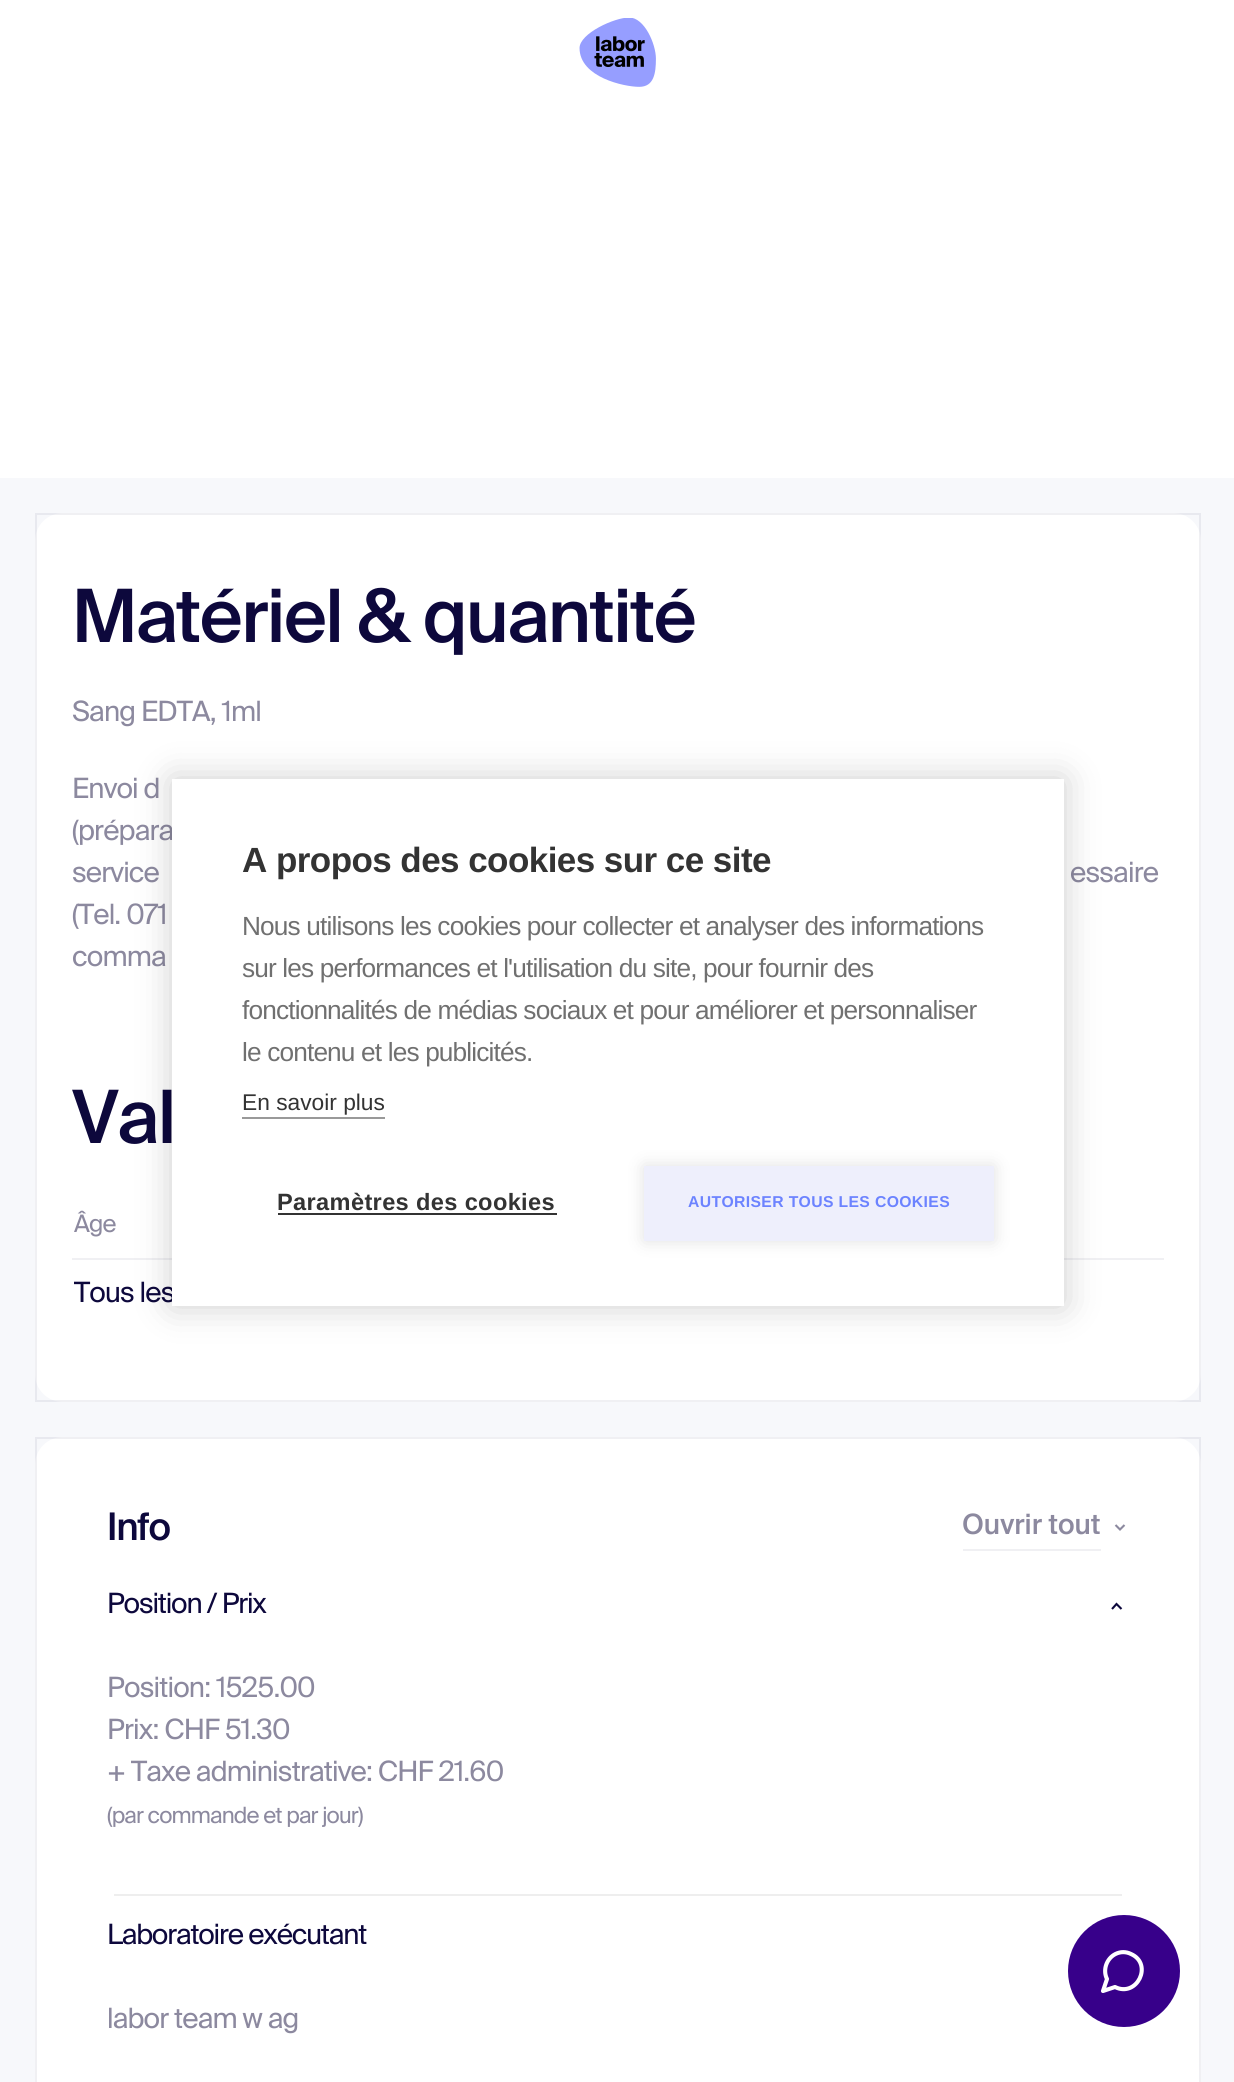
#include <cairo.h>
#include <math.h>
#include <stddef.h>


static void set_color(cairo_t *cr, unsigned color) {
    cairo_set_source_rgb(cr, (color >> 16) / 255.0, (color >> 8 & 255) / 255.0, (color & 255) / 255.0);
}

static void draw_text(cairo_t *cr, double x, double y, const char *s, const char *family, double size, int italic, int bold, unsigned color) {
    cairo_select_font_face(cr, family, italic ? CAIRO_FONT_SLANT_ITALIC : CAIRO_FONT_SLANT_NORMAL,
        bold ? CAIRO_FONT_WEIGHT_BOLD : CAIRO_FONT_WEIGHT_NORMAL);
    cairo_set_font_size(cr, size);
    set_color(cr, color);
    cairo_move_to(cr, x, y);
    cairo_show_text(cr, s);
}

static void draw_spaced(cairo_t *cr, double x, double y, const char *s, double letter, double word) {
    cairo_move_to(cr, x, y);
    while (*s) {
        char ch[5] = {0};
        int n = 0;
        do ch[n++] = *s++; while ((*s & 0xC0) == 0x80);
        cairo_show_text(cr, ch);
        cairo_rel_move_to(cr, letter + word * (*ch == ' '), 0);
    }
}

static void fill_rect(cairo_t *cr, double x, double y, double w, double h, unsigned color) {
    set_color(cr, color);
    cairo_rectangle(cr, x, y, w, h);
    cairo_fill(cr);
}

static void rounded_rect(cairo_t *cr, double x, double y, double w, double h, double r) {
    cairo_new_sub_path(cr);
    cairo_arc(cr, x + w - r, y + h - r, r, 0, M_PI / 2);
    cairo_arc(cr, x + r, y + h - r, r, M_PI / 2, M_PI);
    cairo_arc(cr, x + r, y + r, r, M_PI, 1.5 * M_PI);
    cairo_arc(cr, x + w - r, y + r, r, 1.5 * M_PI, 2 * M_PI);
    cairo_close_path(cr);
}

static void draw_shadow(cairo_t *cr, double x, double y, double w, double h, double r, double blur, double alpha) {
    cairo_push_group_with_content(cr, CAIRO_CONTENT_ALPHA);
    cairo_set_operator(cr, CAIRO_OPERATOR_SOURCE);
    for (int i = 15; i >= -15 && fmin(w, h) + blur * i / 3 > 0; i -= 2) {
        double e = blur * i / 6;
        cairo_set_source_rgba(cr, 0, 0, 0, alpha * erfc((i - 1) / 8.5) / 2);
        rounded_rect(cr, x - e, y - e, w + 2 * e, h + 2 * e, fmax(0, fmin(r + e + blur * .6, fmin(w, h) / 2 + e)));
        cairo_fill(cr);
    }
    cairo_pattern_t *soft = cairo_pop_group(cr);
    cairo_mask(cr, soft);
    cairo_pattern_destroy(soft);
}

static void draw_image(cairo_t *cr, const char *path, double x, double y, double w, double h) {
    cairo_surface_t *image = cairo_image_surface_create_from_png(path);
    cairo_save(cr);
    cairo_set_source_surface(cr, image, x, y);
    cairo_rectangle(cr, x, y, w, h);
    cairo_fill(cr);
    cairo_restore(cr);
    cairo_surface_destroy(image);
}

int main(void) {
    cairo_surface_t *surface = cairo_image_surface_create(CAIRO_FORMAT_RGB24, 1234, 2082);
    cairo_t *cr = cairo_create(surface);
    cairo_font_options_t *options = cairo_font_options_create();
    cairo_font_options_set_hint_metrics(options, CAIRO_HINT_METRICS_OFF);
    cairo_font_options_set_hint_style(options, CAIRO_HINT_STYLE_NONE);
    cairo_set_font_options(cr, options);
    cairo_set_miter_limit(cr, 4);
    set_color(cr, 0xFFFFFF);
    cairo_paint(cr);
    draw_image(cr, "assets/img1.png", 579, 18, 77, 69);
    fill_rect(cr, 0, 478, 1234, 1604, 0xF7F8FB);
    set_color(cr, 0xFFFFFF);
    rounded_rect(cr, 35, 513, 1166, 889, 28);
    cairo_fill(cr);
    fill_rect(cr, 72, 1258, 100, 2, 0xF0F0F3);
    cairo_rectangle(cr, 36, 514, 1164, 887);
    cairo_set_source_rgba(cr, 0.051, 0.031, 0.235, 0.06);
    cairo_stroke(cr);
    cairo_select_font_face(cr, "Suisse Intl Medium", CAIRO_FONT_SLANT_NORMAL, CAIRO_FONT_WEIGHT_NORMAL);
    cairo_set_font_size(cr, 73.5);
    set_color(cr, 0x0D083C);
    draw_spaced(cr, 72, 642, "Matériel & quantité", -1.5, 0);
    cairo_select_font_face(cr, "Suisse Intl", CAIRO_FONT_SLANT_NORMAL, CAIRO_FONT_WEIGHT_NORMAL);
    cairo_set_font_size(cr, 28);
    set_color(cr, 0x8C899F);
    draw_spaced(cr, 72, 721, "Sang EDTA, 1ml", -0.85, 0);
    draw_spaced(cr, 72, 798, "Envoi d", -0.85, 0);
    draw_spaced(cr, 72, 840, "(prépara", -0.85, 0);
    draw_spaced(cr, 72, 882, "service", -0.85, 0);
    draw_spaced(cr, 1070, 882, "essaire", -0.85, 0);
    draw_spaced(cr, 72, 924, "(Tel. 071", -0.85, 0);
    draw_spaced(cr, 72, 966, "comma", -0.85, 0);
    cairo_select_font_face(cr, "Suisse Intl Medium", CAIRO_FONT_SLANT_NORMAL, CAIRO_FONT_WEIGHT_NORMAL);
    cairo_set_font_size(cr, 73.5);
    set_color(cr, 0x0D083C);
    draw_spaced(cr, 72, 1143, "Val", -1.5, 0);
    cairo_select_font_face(cr, "Suisse Intl", CAIRO_FONT_SLANT_NORMAL, CAIRO_FONT_WEIGHT_NORMAL);
    cairo_set_font_size(cr, 24);
    set_color(cr, 0x8C899F);
    draw_spaced(cr, 74, 1232, "Âge", -0.85, 0);
    fill_rect(cr, 1064, 1258, 100, 2, 0xF0F0F3);
    cairo_set_font_size(cr, 28);
    set_color(cr, 0x0D083C);
    draw_spaced(cr, 74, 1302, "Tous les", -0.85, 0);
    set_color(cr, 0xFFFFFF);
    rounded_rect(cr, 35, 1437, 1166, 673, 28);
    cairo_fill(cr);
    cairo_rectangle(cr, 36, 1438, 1164, 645);
    cairo_set_source_rgba(cr, 0.051, 0.031, 0.235, 0.06);
    cairo_stroke(cr);
    cairo_select_font_face(cr, "Suisse Intl Medium", CAIRO_FONT_SLANT_NORMAL, CAIRO_FONT_WEIGHT_NORMAL);
    cairo_set_font_size(cr, 38);
    set_color(cr, 0x0D083C);
    draw_spaced(cr, 107, 1540, "Info", -1.2, 0);
    draw_text(cr, 962, 1534, "Ouvrir tout", "Suisse Intl Medium", 28, 0, 0, 0x8C899F);
    fill_rect(cr, 963, 1549, 138, 2, 0xF0F0F3);
    cairo_new_path(cr);
    cairo_move_to(cr, 1115.5, 1525);
    cairo_line_to(cr, 1120, 1529.5);
    cairo_line_to(cr, 1124.5, 1525);
    set_color(cr, 0x8C899F);
    cairo_set_line_width(cr, 2.1);
    cairo_stroke(cr);
    cairo_select_font_face(cr, "Suisse Intl", CAIRO_FONT_SLANT_NORMAL, CAIRO_FONT_WEIGHT_NORMAL);
    set_color(cr, 0x0D083C);
    draw_spaced(cr, 107, 1613, "Position / Prix", -1.2, 0);
    cairo_new_path(cr);
    cairo_move_to(cr, 1121.5, 1609);
    cairo_line_to(cr, 1116.5, 1604);
    cairo_line_to(cr, 1112, 1609);
    cairo_stroke(cr);
    set_color(cr, 0x8C899F);
    draw_spaced(cr, 107, 1697, "Position: 1525.00", -0.85, 0);
    draw_spaced(cr, 107, 1739, "Prix: CHF 51.30", -0.85, 0);
    draw_spaced(cr, 107, 1781, "+ Taxe administrative: CHF 21.60", -0.85, 0);
    cairo_set_font_size(cr, 22.4);
    draw_spaced(cr, 107, 1823, "(par commande et par jour)", -0.85, 0);
    fill_rect(cr, 114, 1894, 1008, 2, 0xEEEEEE);
    cairo_set_font_size(cr, 28);
    set_color(cr, 0x0D083C);
    draw_spaced(cr, 107, 1944, "Laboratoire exécutant", -1.2, 0);
    set_color(cr, 0x8C899F);
    draw_spaced(cr, 107, 2028, "labor team w ag", -0.85, 0);
    set_color(cr, 0x000000);
    draw_shadow(cr, 172, 779, 892, 527, 0, 17.5, 0.2);
    fill_rect(cr, 172, 779, 892, 527, 0xFFFFFF);
    cairo_select_font_face(cr, "Liberation Sans", CAIRO_FONT_SLANT_NORMAL, CAIRO_FONT_WEIGHT_BOLD);
    cairo_set_font_size(cr, 35);
    set_color(cr, 0x333333);
    draw_spaced(cr, 242, 872, "A propos des cookies sur ce site", -0.55, 0);
    cairo_select_font_face(cr, "Liberation Sans", CAIRO_FONT_SLANT_NORMAL, CAIRO_FONT_WEIGHT_NORMAL);
    cairo_set_font_size(cr, 26.25);
    set_color(cr, 0x707070);
    draw_spaced(cr, 242, 935, "Nous utilisons les cookies pour collecter et analyser des informations", -0.85, 0);
    draw_spaced(cr, 242, 977, "sur les performances et l'utilisation du site, pour fournir des", -0.85, 0);
    draw_spaced(cr, 242, 1019, "fonctionnalités de médias sociaux et pour améliorer et personnaliser", -0.85, 0);
    draw_spaced(cr, 242, 1061, "le contenu et les publicités.", -0.85, 0);
    draw_text(cr, 242, 1110, "En savoir plus", "Liberation Sans", 22.75, 0, 0, 0x333333);
    fill_rect(cr, 242, 1117, 143, 2, 0x999999);
    cairo_select_font_face(cr, "Liberation Sans", CAIRO_FONT_SLANT_NORMAL, CAIRO_FONT_WEIGHT_BOLD);
    cairo_set_font_size(cr, 23.6);
    set_color(cr, 0x333333);
    draw_spaced(cr, 277, 1210, "Paramètres des cookies", 0.35, 0);
    fill_rect(cr, 278, 1213, 279, 2, 0x333333);
    set_color(cr, 0x000000);
    draw_shadow(cr, 644, 1166, 350, 75, 0, 9, 0.12);
    fill_rect(cr, 644, 1166, 350, 75, 0xEEEFFC);
    cairo_set_font_size(cr, 15.75);
    set_color(cr, 0x6C83FF);
    draw_spaced(cr, 688, 1207, "AUTORISER TOUS LES COOKIES", 0.35, 0);
    set_color(cr, 0x37008A);
    cairo_new_path(cr);
    cairo_arc(cr, 1124, 1971, 56, 0, 2 * M_PI);
    cairo_fill(cr);
    cairo_new_path(cr);
    cairo_move_to(cr, 1115, 1987);
    cairo_curve_to(cr, 1137, 1998, 1153.5, 1964, 1131, 1954);
    cairo_curve_to(cr, 1126, 1951.5, 1120.5, 1951.5, 1115.5, 1954);
    cairo_curve_to(cr, 1106.5, 1958.5, 1102.5, 1970, 1107, 1979);
    cairo_line_to(cr, 1103, 1991);
    cairo_close_path(cr);
    set_color(cr, 0xFFFFFF);
    cairo_set_line_width(cr, 4.1);
    cairo_set_line_cap(cr, CAIRO_LINE_CAP_ROUND);
    cairo_set_line_join(cr, CAIRO_LINE_JOIN_ROUND);
    cairo_stroke(cr);
    cairo_surface_write_to_png(surface, "output.png");
    cairo_font_options_destroy(options);
    cairo_destroy(cr);
    cairo_surface_destroy(surface);
    return 0;
}
